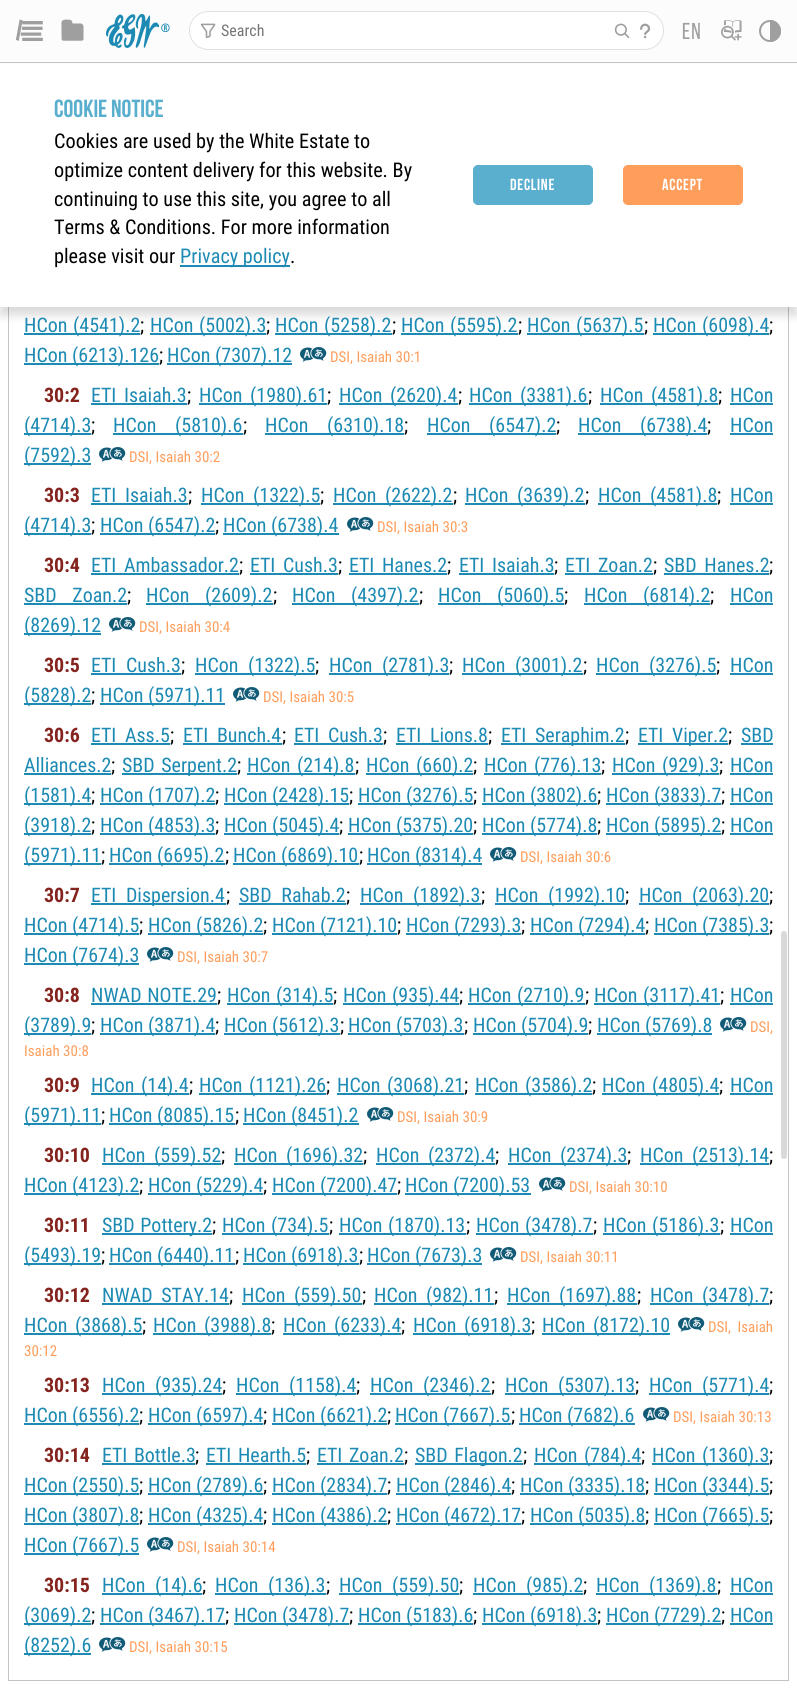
#include <cairo.h>
#include <math.h>
#include <stddef.h>


static void set_color(cairo_t *cr, unsigned color) {
    cairo_set_source_rgb(cr, (color >> 16) / 255.0, (color >> 8 & 255) / 255.0, (color & 255) / 255.0);
}

static void draw_text(cairo_t *cr, double x, double y, const char *s, const char *family, double size, int italic, int bold, unsigned color) {
    cairo_select_font_face(cr, family, italic ? CAIRO_FONT_SLANT_ITALIC : CAIRO_FONT_SLANT_NORMAL,
        bold ? CAIRO_FONT_WEIGHT_BOLD : CAIRO_FONT_WEIGHT_NORMAL);
    cairo_set_font_size(cr, size);
    set_color(cr, color);
    cairo_move_to(cr, x, y);
    cairo_show_text(cr, s);
}

static void draw_spaced(cairo_t *cr, double x, double y, const char *s, double letter, double word) {
    cairo_move_to(cr, x, y);
    while (*s) {
        char ch[5] = {0};
        int n = 0;
        do ch[n++] = *s++; while ((*s & 0xC0) == 0x80);
        cairo_show_text(cr, ch);
        cairo_rel_move_to(cr, letter + word * (*ch == ' '), 0);
    }
}

static void fill_rect(cairo_t *cr, double x, double y, double w, double h, unsigned color) {
    set_color(cr, color);
    cairo_rectangle(cr, x, y, w, h);
    cairo_fill(cr);
}

static void rounded_rect(cairo_t *cr, double x, double y, double w, double h, double r) {
    cairo_new_sub_path(cr);
    cairo_arc(cr, x + w - r, y + h - r, r, 0, M_PI / 2);
    cairo_arc(cr, x + r, y + h - r, r, M_PI / 2, M_PI);
    cairo_arc(cr, x + r, y + r, r, M_PI, 1.5 * M_PI);
    cairo_arc(cr, x + w - r, y + r, r, 1.5 * M_PI, 2 * M_PI);
    cairo_close_path(cr);
}

static void draw_shadow(cairo_t *cr, double x, double y, double w, double h, double r, double blur, double alpha) {
    cairo_push_group_with_content(cr, CAIRO_CONTENT_ALPHA);
    cairo_set_operator(cr, CAIRO_OPERATOR_SOURCE);
    for (int i = 15; i >= -15 && fmin(w, h) + blur * i / 3 > 0; i -= 2) {
        double e = blur * i / 6;
        cairo_set_source_rgba(cr, 0, 0, 0, alpha * erfc((i - 1) / 8.5) / 2);
        rounded_rect(cr, x - e, y - e, w + 2 * e, h + 2 * e, fmax(0, fmin(r + e + blur * .6, fmin(w, h) / 2 + e)));
        cairo_fill(cr);
    }
    cairo_pattern_t *soft = cairo_pop_group(cr);
    cairo_mask(cr, soft);
    cairo_pattern_destroy(soft);
}

static void draw_image(cairo_t *cr, const char *path, double x, double y, double w, double h) {
    cairo_surface_t *image = cairo_image_surface_create_from_png(path);
    cairo_save(cr);
    cairo_set_source_surface(cr, image, x, y);
    cairo_rectangle(cr, x, y, w, h);
    cairo_fill(cr);
    cairo_restore(cr);
    cairo_surface_destroy(image);
}

int main(void) {
    cairo_surface_t *surface = cairo_image_surface_create(CAIRO_FORMAT_RGB24, 797, 1689);
    cairo_t *cr = cairo_create(surface);
    cairo_font_options_t *options = cairo_font_options_create();
    cairo_font_options_set_hint_metrics(options, CAIRO_HINT_METRICS_OFF);
    cairo_font_options_set_hint_style(options, CAIRO_HINT_STYLE_NONE);
    cairo_set_font_options(cr, options);
    cairo_set_miter_limit(cr, 4);
    set_color(cr, 0xFFFFFF);
    cairo_paint(cr);
    fill_rect(cr, 0, 0, 797, 62, 0xFCFCFC);
    fill_rect(cr, 0, 62, 797, 1, 0xC4C4C4);
    draw_image(cr, "assets/img1.png", 15, 19, 28, 22);
    draw_image(cr, "assets/img2.png", 61, 19, 23, 22);
    draw_image(cr, "assets/img3.png", 106, 14, 53, 34);
    cairo_select_font_face(cr, "Bebas Neue", CAIRO_FONT_SLANT_NORMAL, CAIRO_FONT_WEIGHT_BOLD);
    cairo_set_font_size(cr, 12);
    set_color(cr, 0x1C8AB3);
    draw_spaced(cr, 161, 32, "®", 1, 0);
    set_color(cr, 0xFFFFFF);
    rounded_rect(cr, 189.5, 11.5, 474, 38, 19);
    cairo_fill_preserve(cr);
    set_color(cr, 0xE0E0E0);
    cairo_set_line_width(cr, 1);
    cairo_stroke(cr);
    draw_image(cr, "assets/img4.png", 200, 23, 16, 16);
    draw_text(cr, 221, 36, "Search", "Roboto Condensed", 16, 0, 0, 0x757575);
    draw_image(cr, "assets/img5.png", 614, 23, 16, 16);
    draw_image(cr, "assets/img6.png", 640, 23, 11, 16);
    cairo_select_font_face(cr, "Bebas Neue", CAIRO_FONT_SLANT_NORMAL, CAIRO_FONT_WEIGHT_NORMAL);
    cairo_set_font_size(cr, 23);
    set_color(cr, 0x9F9F9F);
    draw_spaced(cr, 682, 39, "en", 1, 0);
    draw_image(cr, "assets/img7.png", 721, 19, 21, 22);
    cairo_arc(cr, 770, 31, 10, 0, 2 * M_PI);
    cairo_set_line_width(cr, 2);
    cairo_stroke(cr);
    cairo_new_path(cr);
    cairo_move_to(cr, 770, 20);
    cairo_curve_to(cr, 776, 20, 781, 25, 781, 31);
    cairo_curve_to(cr, 781, 37, 776, 42, 770, 42);
    cairo_close_path(cr);
    cairo_fill(cr);
    fill_rect(cr, 24, 333, 116, 2, 0x1C8AB3);
    fill_rect(cr, 150, 333, 116, 2, 0x1C8AB3);
    fill_rect(cr, 275, 333, 117, 2, 0x1C8AB3);
    fill_rect(cr, 401, 333, 117, 2, 0x1C8AB3);
    fill_rect(cr, 527, 333, 117, 2, 0x1C8AB3);
    fill_rect(cr, 653, 333, 116, 2, 0x1C8AB3);
    fill_rect(cr, 24, 363, 135, 2, 0x1C8AB3);
    fill_rect(cr, 167, 363, 125, 2, 0x1C8AB3);
    draw_image(cr, "assets/img8.png", 300, 347, 27, 15);
    fill_rect(cr, 91, 403, 96, 2, 0x1C8AB3);
    fill_rect(cr, 199, 403, 128, 2, 0x1C8AB3);
    fill_rect(cr, 339, 403, 119, 2, 0x1C8AB3);
    fill_rect(cr, 469, 403, 119, 2, 0x1C8AB3);
    fill_rect(cr, 600, 403, 118, 2, 0x1C8AB3);
    fill_rect(cr, 730, 403, 43, 2, 0x1C8AB3);
    fill_rect(cr, 24, 433, 67, 2, 0x1C8AB3);
    fill_rect(cr, 113, 433, 130, 2, 0x1C8AB3);
    fill_rect(cr, 265, 433, 139, 2, 0x1C8AB3);
    fill_rect(cr, 427, 433, 129, 2, 0x1C8AB3);
    fill_rect(cr, 578, 433, 129, 2, 0x1C8AB3);
    fill_rect(cr, 730, 433, 43, 2, 0x1C8AB3);
    fill_rect(cr, 24, 463, 67, 2, 0x1C8AB3);
    draw_image(cr, "assets/img8.png", 99, 447, 27, 15);
    fill_rect(cr, 91, 503, 97, 2, 0x1C8AB3);
    fill_rect(cr, 201, 503, 119, 2, 0x1C8AB3);
    fill_rect(cr, 333, 503, 120, 2, 0x1C8AB3);
    fill_rect(cr, 465, 503, 120, 2, 0x1C8AB3);
    fill_rect(cr, 598, 503, 119, 2, 0x1C8AB3);
    fill_rect(cr, 730, 503, 43, 2, 0x1C8AB3);
    fill_rect(cr, 24, 533, 67, 2, 0x1C8AB3);
    fill_rect(cr, 100, 533, 115, 2, 0x1C8AB3);
    fill_rect(cr, 223, 533, 116, 2, 0x1C8AB3);
    draw_image(cr, "assets/img8.png", 347, 517, 27, 15);
    fill_rect(cr, 91, 573, 148, 2, 0x1C8AB3);
    fill_rect(cr, 250, 573, 88, 2, 0x1C8AB3);
    fill_rect(cr, 349, 573, 98, 2, 0x1C8AB3);
    fill_rect(cr, 459, 573, 95, 2, 0x1C8AB3);
    fill_rect(cr, 565, 573, 88, 2, 0x1C8AB3);
    fill_rect(cr, 664, 573, 105, 2, 0x1C8AB3);
    fill_rect(cr, 24, 603, 103, 2, 0x1C8AB3);
    fill_rect(cr, 146, 603, 127, 2, 0x1C8AB3);
    fill_rect(cr, 292, 603, 127, 2, 0x1C8AB3);
    fill_rect(cr, 438, 603, 126, 2, 0x1C8AB3);
    fill_rect(cr, 584, 603, 126, 2, 0x1C8AB3);
    fill_rect(cr, 730, 603, 43, 2, 0x1C8AB3);
    fill_rect(cr, 24, 633, 77, 2, 0x1C8AB3);
    draw_image(cr, "assets/img8.png", 109, 617, 27, 15);
    fill_rect(cr, 91, 673, 90, 2, 0x1C8AB3);
    fill_rect(cr, 195, 673, 120, 2, 0x1C8AB3);
    fill_rect(cr, 329, 673, 120, 2, 0x1C8AB3);
    fill_rect(cr, 462, 673, 121, 2, 0x1C8AB3);
    fill_rect(cr, 596, 673, 120, 2, 0x1C8AB3);
    fill_rect(cr, 730, 673, 43, 2, 0x1C8AB3);
    fill_rect(cr, 24, 703, 67, 2, 0x1C8AB3);
    fill_rect(cr, 100, 703, 125, 2, 0x1C8AB3);
    draw_image(cr, "assets/img8.png", 233, 687, 27, 15);
    fill_rect(cr, 91, 743, 79, 2, 0x1C8AB3);
    fill_rect(cr, 183, 743, 99, 2, 0x1C8AB3);
    fill_rect(cr, 294, 743, 89, 2, 0x1C8AB3);
    fill_rect(cr, 396, 743, 92, 2, 0x1C8AB3);
    fill_rect(cr, 501, 743, 124, 2, 0x1C8AB3);
    fill_rect(cr, 638, 743, 90, 2, 0x1C8AB3);
    fill_rect(cr, 741, 743, 32, 2, 0x1C8AB3);
    fill_rect(cr, 24, 773, 87, 2, 0x1C8AB3);
    fill_rect(cr, 122, 773, 115, 2, 0x1C8AB3);
    fill_rect(cr, 247, 773, 108, 2, 0x1C8AB3);
    fill_rect(cr, 366, 773, 107, 2, 0x1C8AB3);
    fill_rect(cr, 484, 773, 117, 2, 0x1C8AB3);
    fill_rect(cr, 612, 773, 107, 2, 0x1C8AB3);
    fill_rect(cr, 730, 773, 43, 2, 0x1C8AB3);
    fill_rect(cr, 24, 803, 67, 2, 0x1C8AB3);
    fill_rect(cr, 100, 803, 115, 2, 0x1C8AB3);
    fill_rect(cr, 224, 803, 125, 2, 0x1C8AB3);
    fill_rect(cr, 358, 803, 115, 2, 0x1C8AB3);
    fill_rect(cr, 482, 803, 115, 2, 0x1C8AB3);
    fill_rect(cr, 606, 803, 115, 2, 0x1C8AB3);
    fill_rect(cr, 730, 803, 43, 2, 0x1C8AB3);
    fill_rect(cr, 24, 833, 67, 2, 0x1C8AB3);
    fill_rect(cr, 100, 833, 115, 2, 0x1C8AB3);
    fill_rect(cr, 224, 833, 115, 2, 0x1C8AB3);
    fill_rect(cr, 348, 833, 125, 2, 0x1C8AB3);
    fill_rect(cr, 482, 833, 115, 2, 0x1C8AB3);
    fill_rect(cr, 606, 833, 115, 2, 0x1C8AB3);
    fill_rect(cr, 730, 833, 43, 2, 0x1C8AB3);
    fill_rect(cr, 24, 863, 77, 2, 0x1C8AB3);
    fill_rect(cr, 109, 863, 116, 2, 0x1C8AB3);
    fill_rect(cr, 233, 863, 126, 2, 0x1C8AB3);
    fill_rect(cr, 367, 863, 115, 2, 0x1C8AB3);
    draw_image(cr, "assets/img8.png", 490, 847, 27, 15);
    fill_rect(cr, 91, 903, 135, 2, 0x1C8AB3);
    fill_rect(cr, 239, 903, 107, 2, 0x1C8AB3);
    fill_rect(cr, 360, 903, 121, 2, 0x1C8AB3);
    fill_rect(cr, 495, 903, 130, 2, 0x1C8AB3);
    fill_rect(cr, 639, 903, 130, 2, 0x1C8AB3);
    fill_rect(cr, 24, 933, 115, 2, 0x1C8AB3);
    fill_rect(cr, 148, 933, 115, 2, 0x1C8AB3);
    fill_rect(cr, 272, 933, 125, 2, 0x1C8AB3);
    fill_rect(cr, 406, 933, 115, 2, 0x1C8AB3);
    fill_rect(cr, 530, 933, 115, 2, 0x1C8AB3);
    fill_rect(cr, 654, 933, 115, 2, 0x1C8AB3);
    fill_rect(cr, 24, 963, 115, 2, 0x1C8AB3);
    draw_image(cr, "assets/img8.png", 147, 947, 27, 15);
    fill_rect(cr, 91, 1003, 126, 2, 0x1C8AB3);
    fill_rect(cr, 227, 1003, 106, 2, 0x1C8AB3);
    fill_rect(cr, 343, 1003, 116, 2, 0x1C8AB3);
    fill_rect(cr, 468, 1003, 117, 2, 0x1C8AB3);
    fill_rect(cr, 594, 1003, 126, 2, 0x1C8AB3);
    fill_rect(cr, 730, 1003, 43, 2, 0x1C8AB3);
    fill_rect(cr, 24, 1033, 67, 2, 0x1C8AB3);
    fill_rect(cr, 100, 1033, 115, 2, 0x1C8AB3);
    fill_rect(cr, 224, 1033, 116, 2, 0x1C8AB3);
    fill_rect(cr, 348, 1033, 116, 2, 0x1C8AB3);
    fill_rect(cr, 473, 1033, 115, 2, 0x1C8AB3);
    fill_rect(cr, 597, 1033, 115, 2, 0x1C8AB3);
    draw_image(cr, "assets/img8.png", 720, 1017, 27, 15);
    fill_rect(cr, 91, 1093, 98, 2, 0x1C8AB3);
    fill_rect(cr, 199, 1093, 127, 2, 0x1C8AB3);
    fill_rect(cr, 337, 1093, 127, 2, 0x1C8AB3);
    fill_rect(cr, 475, 1093, 117, 2, 0x1C8AB3);
    fill_rect(cr, 602, 1093, 117, 2, 0x1C8AB3);
    fill_rect(cr, 730, 1093, 43, 2, 0x1C8AB3);
    fill_rect(cr, 24, 1123, 77, 2, 0x1C8AB3);
    fill_rect(cr, 109, 1123, 126, 2, 0x1C8AB3);
    fill_rect(cr, 243, 1123, 116, 2, 0x1C8AB3);
    draw_image(cr, "assets/img8.png", 367, 1107, 27, 15);
    fill_rect(cr, 102, 1163, 119, 2, 0x1C8AB3);
    fill_rect(cr, 234, 1163, 129, 2, 0x1C8AB3);
    fill_rect(cr, 376, 1163, 119, 2, 0x1C8AB3);
    fill_rect(cr, 508, 1163, 119, 2, 0x1C8AB3);
    fill_rect(cr, 640, 1163, 129, 2, 0x1C8AB3);
    fill_rect(cr, 24, 1193, 115, 2, 0x1C8AB3);
    fill_rect(cr, 148, 1193, 115, 2, 0x1C8AB3);
    fill_rect(cr, 272, 1193, 125, 2, 0x1C8AB3);
    fill_rect(cr, 405, 1193, 126, 2, 0x1C8AB3);
    draw_image(cr, "assets/img8.png", 539, 1177, 27, 15);
    fill_rect(cr, 102, 1233, 110, 2, 0x1C8AB3);
    fill_rect(cr, 222, 1233, 107, 2, 0x1C8AB3);
    fill_rect(cr, 339, 1233, 127, 2, 0x1C8AB3);
    fill_rect(cr, 476, 1233, 117, 2, 0x1C8AB3);
    fill_rect(cr, 603, 1233, 117, 2, 0x1C8AB3);
    fill_rect(cr, 730, 1233, 43, 2, 0x1C8AB3);
    fill_rect(cr, 24, 1263, 77, 2, 0x1C8AB3);
    fill_rect(cr, 109, 1263, 126, 2, 0x1C8AB3);
    fill_rect(cr, 243, 1263, 116, 2, 0x1C8AB3);
    fill_rect(cr, 367, 1263, 115, 2, 0x1C8AB3);
    draw_image(cr, "assets/img8.png", 490, 1247, 27, 15);
    fill_rect(cr, 102, 1303, 127, 2, 0x1C8AB3);
    fill_rect(cr, 242, 1303, 120, 2, 0x1C8AB3);
    fill_rect(cr, 374, 1303, 120, 2, 0x1C8AB3);
    fill_rect(cr, 507, 1303, 130, 2, 0x1C8AB3);
    fill_rect(cr, 650, 1303, 119, 2, 0x1C8AB3);
    fill_rect(cr, 24, 1333, 118, 2, 0x1C8AB3);
    fill_rect(cr, 153, 1333, 118, 2, 0x1C8AB3);
    fill_rect(cr, 283, 1333, 118, 2, 0x1C8AB3);
    fill_rect(cr, 413, 1333, 118, 2, 0x1C8AB3);
    fill_rect(cr, 542, 1333, 128, 2, 0x1C8AB3);
    draw_image(cr, "assets/img8.png", 678, 1317, 27, 15);
    fill_rect(cr, 102, 1393, 120, 2, 0x1C8AB3);
    fill_rect(cr, 236, 1393, 120, 2, 0x1C8AB3);
    fill_rect(cr, 370, 1393, 121, 2, 0x1C8AB3);
    fill_rect(cr, 505, 1393, 130, 2, 0x1C8AB3);
    fill_rect(cr, 649, 1393, 120, 2, 0x1C8AB3);
    fill_rect(cr, 24, 1423, 115, 2, 0x1C8AB3);
    fill_rect(cr, 148, 1423, 115, 2, 0x1C8AB3);
    fill_rect(cr, 272, 1423, 115, 2, 0x1C8AB3);
    fill_rect(cr, 395, 1423, 116, 2, 0x1C8AB3);
    fill_rect(cr, 519, 1423, 116, 2, 0x1C8AB3);
    draw_image(cr, "assets/img8.png", 643, 1407, 27, 15);
    fill_rect(cr, 102, 1463, 93, 2, 0x1C8AB3);
    fill_rect(cr, 206, 1463, 100, 2, 0x1C8AB3);
    fill_rect(cr, 317, 1463, 87, 2, 0x1C8AB3);
    fill_rect(cr, 415, 1463, 108, 2, 0x1C8AB3);
    fill_rect(cr, 534, 1463, 107, 2, 0x1C8AB3);
    fill_rect(cr, 652, 1463, 117, 2, 0x1C8AB3);
    fill_rect(cr, 24, 1493, 115, 2, 0x1C8AB3);
    fill_rect(cr, 148, 1493, 115, 2, 0x1C8AB3);
    fill_rect(cr, 272, 1493, 115, 2, 0x1C8AB3);
    fill_rect(cr, 396, 1493, 115, 2, 0x1C8AB3);
    fill_rect(cr, 520, 1493, 125, 2, 0x1C8AB3);
    fill_rect(cr, 654, 1493, 115, 2, 0x1C8AB3);
    fill_rect(cr, 24, 1523, 115, 2, 0x1C8AB3);
    fill_rect(cr, 148, 1523, 115, 2, 0x1C8AB3);
    fill_rect(cr, 272, 1523, 115, 2, 0x1C8AB3);
    fill_rect(cr, 396, 1523, 125, 2, 0x1C8AB3);
    fill_rect(cr, 530, 1523, 115, 2, 0x1C8AB3);
    fill_rect(cr, 654, 1523, 115, 2, 0x1C8AB3);
    fill_rect(cr, 24, 1553, 115, 2, 0x1C8AB3);
    draw_image(cr, "assets/img8.png", 147, 1537, 27, 15);
    fill_rect(cr, 102, 1593, 100, 2, 0x1C8AB3);
    fill_rect(cr, 215, 1593, 111, 2, 0x1C8AB3);
    fill_rect(cr, 339, 1593, 120, 2, 0x1C8AB3);
    fill_rect(cr, 473, 1593, 110, 2, 0x1C8AB3);
    fill_rect(cr, 596, 1593, 121, 2, 0x1C8AB3);
    fill_rect(cr, 730, 1593, 43, 2, 0x1C8AB3);
    fill_rect(cr, 24, 1623, 67, 2, 0x1C8AB3);
    fill_rect(cr, 100, 1623, 125, 2, 0x1C8AB3);
    fill_rect(cr, 234, 1623, 115, 2, 0x1C8AB3);
    fill_rect(cr, 358, 1623, 115, 2, 0x1C8AB3);
    fill_rect(cr, 482, 1623, 115, 2, 0x1C8AB3);
    fill_rect(cr, 606, 1623, 115, 2, 0x1C8AB3);
    fill_rect(cr, 730, 1623, 43, 2, 0x1C8AB3);
    fill_rect(cr, 24, 1653, 67, 2, 0x1C8AB3);
    draw_image(cr, "assets/img8.png", 99, 1637, 27, 15);
    set_color(cr, 0xD9D9D9);
    rounded_rect(cr, 781, 931, 6, 228, 3);
    cairo_fill(cr);
    cairo_rectangle(cr, 8.5, 137.5, 780, 1543);
    set_color(cr, 0xC4C4C4);
    cairo_set_line_width(cr, 1);
    cairo_stroke(cr);
    set_color(cr, 0x000000);
    draw_shadow(cr, 0, 71, 797, 244, 0, 5, 0.15);
    fill_rect(cr, 0, 64, 797, 243, 0xFFFFFF);
    draw_text(cr, 54, 117, "Cookie Notice", "Bebas Neue", 24.75, 0, 1, 0x5AAECE);
    draw_text(cr, 54, 148, "Cookies are used by the White Estate to", "Roboto Condensed", 20.25, 0, 0, 0x000000);
    draw_text(cr, 54, 177, "optimize content delivery for this website. By", "Roboto Condensed", 20.25, 0, 0, 0x000000);
    draw_text(cr, 54, 206, "continuing to use this site, you agree to all", "Roboto Condensed", 20.25, 0, 0, 0x000000);
    draw_text(cr, 54, 234, "Terms & Conditions. For more information", "Roboto Condensed", 20.25, 0, 0, 0x000000);
    draw_text(cr, 54, 263, "please visit our", "Roboto Condensed", 20.25, 0, 0, 0x000000);
    fill_rect(cr, 180, 265, 110, 2, 0x1C8AB3);
    draw_text(cr, 180, 263, "Privacy policy", "Roboto Condensed", 20.25, 0, 0, 0x1C8AB3);
    draw_text(cr, 290, 263, ".", "Roboto Condensed", 20.25, 0, 0, 0x000000);
    set_color(cr, 0x5AAECE);
    rounded_rect(cr, 473.5, 165.5, 119, 39, 4.5);
    cairo_fill_preserve(cr);
    cairo_stroke(cr);
    cairo_select_font_face(cr, "Bebas Neue", CAIRO_FONT_SLANT_NORMAL, CAIRO_FONT_WEIGHT_BOLD);
    cairo_set_font_size(cr, 16);
    set_color(cr, 0xFFFFFF);
    draw_spaced(cr, 510, 190, "Decline", 0.75, 0);
    set_color(cr, 0xFF9D5B);
    rounded_rect(cr, 623.5, 165.5, 119, 39, 4.5);
    cairo_fill_preserve(cr);
    cairo_stroke(cr);
    set_color(cr, 0xFFFFFF);
    draw_spaced(cr, 662, 190, "Accept", 0.75, 0);
    cairo_select_font_face(cr, "Roboto Condensed", CAIRO_FONT_SLANT_NORMAL, CAIRO_FONT_WEIGHT_NORMAL);
    cairo_set_font_size(cr, 20);
    set_color(cr, 0x1C8AB3);
    draw_spaced(cr, 24, 332, "HCon (4541).2", 0, 1);
    draw_text(cr, 140, 332, ";", "Roboto Condensed", 20, 0, 0, 0x000000);
    set_color(cr, 0x1C8AB3);
    draw_spaced(cr, 150, 332, "HCon (5002).3", 0, 1);
    draw_text(cr, 266, 332, ";", "Roboto Condensed", 20, 0, 0, 0x000000);
    set_color(cr, 0x1C8AB3);
    draw_spaced(cr, 275, 332, "HCon (5258).2", 0, 1);
    draw_text(cr, 392, 332, ";", "Roboto Condensed", 20, 0, 0, 0x000000);
    set_color(cr, 0x1C8AB3);
    draw_spaced(cr, 401, 332, "HCon (5595).2", 0, 1);
    draw_text(cr, 518, 332, ";", "Roboto Condensed", 20, 0, 0, 0x000000);
    set_color(cr, 0x1C8AB3);
    draw_spaced(cr, 527, 332, "HCon (5637).5", 0, 1);
    draw_text(cr, 644, 332, ";", "Roboto Condensed", 20, 0, 0, 0x000000);
    set_color(cr, 0x1C8AB3);
    draw_spaced(cr, 653, 332, "HCon (6098).4", 0, 1);
    draw_text(cr, 769, 332, ";", "Roboto Condensed", 20, 0, 0, 0x000000);
    draw_text(cr, 24, 362, "HCon (6213).126", "Roboto Condensed", 20, 0, 0, 0x1C8AB3);
    draw_text(cr, 159, 362, ";", "Roboto Condensed", 20, 0, 0, 0x000000);
    draw_text(cr, 167, 362, "HCon (7307).12", "Roboto Condensed", 20, 0, 0, 0x1C8AB3);
    draw_text(cr, 330, 362, "DSI, Isaiah 30:1", "Roboto Condensed", 15, 0, 0, 0xFF9D5B);
    draw_text(cr, 44, 402, "30:2", "Roboto Condensed", 20, 0, 1, 0x85241E);
    cairo_select_font_face(cr, "Roboto Condensed", CAIRO_FONT_SLANT_NORMAL, CAIRO_FONT_WEIGHT_NORMAL);
    set_color(cr, 0x1C8AB3);
    draw_spaced(cr, 91, 402, "ETI Isaiah.3", 0, 3);
    draw_text(cr, 187, 402, ";", "Roboto Condensed", 20, 0, 0, 0x000000);
    set_color(cr, 0x1C8AB3);
    draw_spaced(cr, 199, 402, "HCon (1980).61", 0, 3);
    draw_text(cr, 327, 402, ";", "Roboto Condensed", 20, 0, 0, 0x000000);
    set_color(cr, 0x1C8AB3);
    draw_spaced(cr, 339, 402, "HCon (2620).4", 0, 3);
    draw_text(cr, 458, 402, ";", "Roboto Condensed", 20, 0, 0, 0x000000);
    set_color(cr, 0x1C8AB3);
    draw_spaced(cr, 469, 402, "HCon (3381).6", 0, 3);
    draw_text(cr, 588, 402, ";", "Roboto Condensed", 20, 0, 0, 0x000000);
    set_color(cr, 0x1C8AB3);
    draw_spaced(cr, 600, 402, "HCon (4581).8", 0, 3);
    draw_text(cr, 718, 402, ";", "Roboto Condensed", 20, 0, 0, 0x000000);
    draw_text(cr, 730, 402, "HCon", "Roboto Condensed", 20, 0, 0, 0x1C8AB3);
    draw_text(cr, 24, 432, "(4714).3", "Roboto Condensed", 20, 0, 0, 0x1C8AB3);
    draw_text(cr, 91, 432, ";", "Roboto Condensed", 20, 0, 0, 0x000000);
    set_color(cr, 0x1C8AB3);
    draw_spaced(cr, 113, 432, "HCon (5810).6", 0, 14);
    draw_text(cr, 243, 432, ";", "Roboto Condensed", 20, 0, 0, 0x000000);
    set_color(cr, 0x1C8AB3);
    draw_spaced(cr, 265, 432, "HCon (6310).18", 0, 14);
    draw_text(cr, 404, 432, ";", "Roboto Condensed", 20, 0, 0, 0x000000);
    set_color(cr, 0x1C8AB3);
    draw_spaced(cr, 427, 432, "HCon (6547).2", 0, 14);
    draw_text(cr, 556, 432, ";", "Roboto Condensed", 20, 0, 0, 0x000000);
    set_color(cr, 0x1C8AB3);
    draw_spaced(cr, 578, 432, "HCon (6738).4", 0, 14);
    draw_text(cr, 707, 432, ";", "Roboto Condensed", 20, 0, 0, 0x000000);
    draw_text(cr, 730, 432, "HCon", "Roboto Condensed", 20, 0, 0, 0x1C8AB3);
    draw_text(cr, 24, 462, "(7592).3", "Roboto Condensed", 20, 0, 0, 0x1C8AB3);
    draw_text(cr, 129, 462, "DSI, Isaiah 30:2", "Roboto Condensed", 15, 0, 0, 0xFF9D5B);
    draw_text(cr, 44, 502, "30:3", "Roboto Condensed", 20, 0, 1, 0x85241E);
    cairo_select_font_face(cr, "Roboto Condensed", CAIRO_FONT_SLANT_NORMAL, CAIRO_FONT_WEIGHT_NORMAL);
    set_color(cr, 0x1C8AB3);
    draw_spaced(cr, 91, 502, "ETI Isaiah.3", 0, 4);
    draw_text(cr, 188, 502, ";", "Roboto Condensed", 20, 0, 0, 0x000000);
    set_color(cr, 0x1C8AB3);
    draw_spaced(cr, 201, 502, "HCon (1322).5", 0, 4);
    draw_text(cr, 320, 502, ";", "Roboto Condensed", 20, 0, 0, 0x000000);
    set_color(cr, 0x1C8AB3);
    draw_spaced(cr, 333, 502, "HCon (2622).2", 0, 4);
    draw_text(cr, 453, 502, ";", "Roboto Condensed", 20, 0, 0, 0x000000);
    set_color(cr, 0x1C8AB3);
    draw_spaced(cr, 465, 502, "HCon (3639).2", 0, 4);
    draw_text(cr, 585, 502, ";", "Roboto Condensed", 20, 0, 0, 0x000000);
    set_color(cr, 0x1C8AB3);
    draw_spaced(cr, 598, 502, "HCon (4581).8", 0, 4);
    draw_text(cr, 717, 502, ";", "Roboto Condensed", 20, 0, 0, 0x000000);
    draw_text(cr, 730, 502, "HCon", "Roboto Condensed", 20, 0, 0, 0x1C8AB3);
    draw_text(cr, 24, 532, "(4714).3", "Roboto Condensed", 20, 0, 0, 0x1C8AB3);
    draw_text(cr, 91, 532, ";", "Roboto Condensed", 20, 0, 0, 0x000000);
    draw_text(cr, 100, 532, "HCon (6547).2", "Roboto Condensed", 20, 0, 0, 0x1C8AB3);
    draw_text(cr, 215, 532, ";", "Roboto Condensed", 20, 0, 0, 0x000000);
    draw_text(cr, 223, 532, "HCon (6738).4", "Roboto Condensed", 20, 0, 0, 0x1C8AB3);
    draw_text(cr, 377, 532, "DSI, Isaiah 30:3", "Roboto Condensed", 15, 0, 0, 0xFF9D5B);
    draw_text(cr, 44, 572, "30:4", "Roboto Condensed", 20, 0, 1, 0x85241E);
    cairo_select_font_face(cr, "Roboto Condensed", CAIRO_FONT_SLANT_NORMAL, CAIRO_FONT_WEIGHT_NORMAL);
    set_color(cr, 0x1C8AB3);
    draw_spaced(cr, 91, 572, "ETI Ambassador.2", 0, 3);
    draw_text(cr, 239, 572, ";", "Roboto Condensed", 20, 0, 0, 0x000000);
    set_color(cr, 0x1C8AB3);
    draw_spaced(cr, 250, 572, "ETI Cush.3", 0, 3);
    draw_text(cr, 338, 572, ";", "Roboto Condensed", 20, 0, 0, 0x000000);
    set_color(cr, 0x1C8AB3);
    draw_spaced(cr, 349, 572, "ETI Hanes.2", 0, 3);
    draw_text(cr, 447, 572, ";", "Roboto Condensed", 20, 0, 0, 0x000000);
    set_color(cr, 0x1C8AB3);
    draw_spaced(cr, 459, 572, "ETI Isaiah.3", 0, 3);
    draw_text(cr, 554, 572, ";", "Roboto Condensed", 20, 0, 0, 0x000000);
    set_color(cr, 0x1C8AB3);
    draw_spaced(cr, 565, 572, "ETI Zoan.2", 0, 3);
    draw_text(cr, 653, 572, ";", "Roboto Condensed", 20, 0, 0, 0x000000);
    set_color(cr, 0x1C8AB3);
    draw_spaced(cr, 664, 572, "SBD Hanes.2", 0, 3);
    draw_text(cr, 769, 572, ";", "Roboto Condensed", 20, 0, 0, 0x000000);
    set_color(cr, 0x1C8AB3);
    draw_spaced(cr, 24, 602, "SBD Zoan.2", 0, 11);
    draw_text(cr, 127, 602, ";", "Roboto Condensed", 20, 0, 0, 0x000000);
    set_color(cr, 0x1C8AB3);
    draw_spaced(cr, 146, 602, "HCon (2609).2", 0, 11);
    draw_text(cr, 273, 602, ";", "Roboto Condensed", 20, 0, 0, 0x000000);
    set_color(cr, 0x1C8AB3);
    draw_spaced(cr, 292, 602, "HCon (4397).2", 0, 11);
    draw_text(cr, 419, 602, ";", "Roboto Condensed", 20, 0, 0, 0x000000);
    set_color(cr, 0x1C8AB3);
    draw_spaced(cr, 438, 602, "HCon (5060).5", 0, 11);
    draw_text(cr, 564, 602, ";", "Roboto Condensed", 20, 0, 0, 0x000000);
    set_color(cr, 0x1C8AB3);
    draw_spaced(cr, 584, 602, "HCon (6814).2", 0, 11);
    draw_text(cr, 710, 602, ";", "Roboto Condensed", 20, 0, 0, 0x000000);
    draw_text(cr, 730, 602, "HCon", "Roboto Condensed", 20, 0, 0, 0x1C8AB3);
    draw_text(cr, 24, 632, "(8269).12", "Roboto Condensed", 20, 0, 0, 0x1C8AB3);
    draw_text(cr, 139, 632, "DSI, Isaiah 30:4", "Roboto Condensed", 15, 0, 0, 0xFF9D5B);
    draw_text(cr, 44, 672, "30:5", "Roboto Condensed", 20, 0, 1, 0x85241E);
    cairo_select_font_face(cr, "Roboto Condensed", CAIRO_FONT_SLANT_NORMAL, CAIRO_FONT_WEIGHT_NORMAL);
    set_color(cr, 0x1C8AB3);
    draw_spaced(cr, 91, 672, "ETI Cush.3", 0, 5);
    draw_text(cr, 181, 672, ";", "Roboto Condensed", 20, 0, 0, 0x000000);
    set_color(cr, 0x1C8AB3);
    draw_spaced(cr, 195, 672, "HCon (1322).5", 0, 5);
    draw_text(cr, 315, 672, ";", "Roboto Condensed", 20, 0, 0, 0x000000);
    set_color(cr, 0x1C8AB3);
    draw_spaced(cr, 329, 672, "HCon (2781).3", 0, 5);
    draw_text(cr, 449, 672, ";", "Roboto Condensed", 20, 0, 0, 0x000000);
    set_color(cr, 0x1C8AB3);
    draw_spaced(cr, 462, 672, "HCon (3001).2", 0, 5);
    draw_text(cr, 583, 672, ";", "Roboto Condensed", 20, 0, 0, 0x000000);
    set_color(cr, 0x1C8AB3);
    draw_spaced(cr, 596, 672, "HCon (3276).5", 0, 5);
    draw_text(cr, 716, 672, ";", "Roboto Condensed", 20, 0, 0, 0x000000);
    draw_text(cr, 730, 672, "HCon", "Roboto Condensed", 20, 0, 0, 0x1C8AB3);
    draw_text(cr, 24, 702, "(5828).2", "Roboto Condensed", 20, 0, 0, 0x1C8AB3);
    draw_text(cr, 91, 702, ";", "Roboto Condensed", 20, 0, 0, 0x000000);
    draw_text(cr, 100, 702, "HCon (5971).11", "Roboto Condensed", 20, 0, 0, 0x1C8AB3);
    draw_text(cr, 263, 702, "DSI, Isaiah 30:5", "Roboto Condensed", 15, 0, 0, 0xFF9D5B);
    draw_text(cr, 44, 742, "30:6", "Roboto Condensed", 20, 0, 1, 0x85241E);
    cairo_select_font_face(cr, "Roboto Condensed", CAIRO_FONT_SLANT_NORMAL, CAIRO_FONT_WEIGHT_NORMAL);
    set_color(cr, 0x1C8AB3);
    draw_spaced(cr, 91, 742, "ETI Ass.5", 0, 4);
    draw_text(cr, 170, 742, ";", "Roboto Condensed", 20, 0, 0, 0x000000);
    set_color(cr, 0x1C8AB3);
    draw_spaced(cr, 183, 742, "ETI Bunch.4", 0, 4);
    draw_text(cr, 282, 742, ";", "Roboto Condensed", 20, 0, 0, 0x000000);
    set_color(cr, 0x1C8AB3);
    draw_spaced(cr, 294, 742, "ETI Cush.3", 0, 4);
    draw_text(cr, 383, 742, ";", "Roboto Condensed", 20, 0, 0, 0x000000);
    set_color(cr, 0x1C8AB3);
    draw_spaced(cr, 396, 742, "ETI Lions.8", 0, 4);
    draw_text(cr, 488, 742, ";", "Roboto Condensed", 20, 0, 0, 0x000000);
    set_color(cr, 0x1C8AB3);
    draw_spaced(cr, 501, 742, "ETI Seraphim.2", 0, 4);
    draw_text(cr, 625, 742, ";", "Roboto Condensed", 20, 0, 0, 0x000000);
    set_color(cr, 0x1C8AB3);
    draw_spaced(cr, 638, 742, "ETI Viper.2", 0, 4);
    draw_text(cr, 728, 742, ";", "Roboto Condensed", 20, 0, 0, 0x000000);
    draw_text(cr, 741, 742, "SBD", "Roboto Condensed", 20, 0, 0, 0x1C8AB3);
    draw_text(cr, 24, 772, "Alliances.2", "Roboto Condensed", 20, 0, 0, 0x1C8AB3);
    draw_text(cr, 111, 772, ";", "Roboto Condensed", 20, 0, 0, 0x000000);
    set_color(cr, 0x1C8AB3);
    draw_spaced(cr, 122, 772, "SBD Serpent.2", 0, 2);
    draw_text(cr, 237, 772, ";", "Roboto Condensed", 20, 0, 0, 0x000000);
    set_color(cr, 0x1C8AB3);
    draw_spaced(cr, 247, 772, "HCon (214).8", 0, 2);
    draw_text(cr, 355, 772, ";", "Roboto Condensed", 20, 0, 0, 0x000000);
    set_color(cr, 0x1C8AB3);
    draw_spaced(cr, 366, 772, "HCon (660).2", 0, 2);
    draw_text(cr, 473, 772, ";", "Roboto Condensed", 20, 0, 0, 0x000000);
    set_color(cr, 0x1C8AB3);
    draw_spaced(cr, 484, 772, "HCon (776).13", 0, 2);
    draw_text(cr, 601, 772, ";", "Roboto Condensed", 20, 0, 0, 0x000000);
    set_color(cr, 0x1C8AB3);
    draw_spaced(cr, 612, 772, "HCon (929).3", 0, 2);
    draw_text(cr, 719, 772, ";", "Roboto Condensed", 20, 0, 0, 0x000000);
    draw_text(cr, 730, 772, "HCon", "Roboto Condensed", 20, 0, 0, 0x1C8AB3);
    draw_text(cr, 24, 802, "(1581).4", "Roboto Condensed", 20, 0, 0, 0x1C8AB3);
    draw_text(cr, 91, 802, ";", "Roboto Condensed", 20, 0, 0, 0x000000);
    draw_text(cr, 100, 802, "HCon (1707).2", "Roboto Condensed", 20, 0, 0, 0x1C8AB3);
    draw_text(cr, 215, 802, ";", "Roboto Condensed", 20, 0, 0, 0x000000);
    draw_text(cr, 224, 802, "HCon (2428).15", "Roboto Condensed", 20, 0, 0, 0x1C8AB3);
    draw_text(cr, 349, 802, ";", "Roboto Condensed", 20, 0, 0, 0x000000);
    draw_text(cr, 358, 802, "HCon (3276).5", "Roboto Condensed", 20, 0, 0, 0x1C8AB3);
    draw_text(cr, 473, 802, ";", "Roboto Condensed", 20, 0, 0, 0x000000);
    draw_text(cr, 482, 802, "HCon (3802).6", "Roboto Condensed", 20, 0, 0, 0x1C8AB3);
    draw_text(cr, 597, 802, ";", "Roboto Condensed", 20, 0, 0, 0x000000);
    draw_text(cr, 606, 802, "HCon (3833).7", "Roboto Condensed", 20, 0, 0, 0x1C8AB3);
    draw_text(cr, 721, 802, ";", "Roboto Condensed", 20, 0, 0, 0x000000);
    draw_text(cr, 730, 802, "HCon", "Roboto Condensed", 20, 0, 0, 0x1C8AB3);
    draw_text(cr, 24, 832, "(3918).2", "Roboto Condensed", 20, 0, 0, 0x1C8AB3);
    draw_text(cr, 91, 832, ";", "Roboto Condensed", 20, 0, 0, 0x000000);
    draw_text(cr, 100, 832, "HCon (4853).3", "Roboto Condensed", 20, 0, 0, 0x1C8AB3);
    draw_text(cr, 215, 832, ";", "Roboto Condensed", 20, 0, 0, 0x000000);
    draw_text(cr, 224, 832, "HCon (5045).4", "Roboto Condensed", 20, 0, 0, 0x1C8AB3);
    draw_text(cr, 339, 832, ";", "Roboto Condensed", 20, 0, 0, 0x000000);
    draw_text(cr, 348, 832, "HCon (5375).20", "Roboto Condensed", 20, 0, 0, 0x1C8AB3);
    draw_text(cr, 473, 832, ";", "Roboto Condensed", 20, 0, 0, 0x000000);
    draw_text(cr, 482, 832, "HCon (5774).8", "Roboto Condensed", 20, 0, 0, 0x1C8AB3);
    draw_text(cr, 597, 832, ";", "Roboto Condensed", 20, 0, 0, 0x000000);
    draw_text(cr, 606, 832, "HCon (5895).2", "Roboto Condensed", 20, 0, 0, 0x1C8AB3);
    draw_text(cr, 721, 832, ";", "Roboto Condensed", 20, 0, 0, 0x000000);
    draw_text(cr, 730, 832, "HCon", "Roboto Condensed", 20, 0, 0, 0x1C8AB3);
    draw_text(cr, 24, 862, "(5971).11", "Roboto Condensed", 20, 0, 0, 0x1C8AB3);
    draw_text(cr, 101, 862, ";", "Roboto Condensed", 20, 0, 0, 0x000000);
    draw_text(cr, 109, 862, "HCon (6695).2", "Roboto Condensed", 20, 0, 0, 0x1C8AB3);
    draw_text(cr, 225, 862, ";", "Roboto Condensed", 20, 0, 0, 0x000000);
    draw_text(cr, 233, 862, "HCon (6869).10", "Roboto Condensed", 20, 0, 0, 0x1C8AB3);
    draw_text(cr, 359, 862, ";", "Roboto Condensed", 20, 0, 0, 0x000000);
    draw_text(cr, 367, 862, "HCon (8314).4", "Roboto Condensed", 20, 0, 0, 0x1C8AB3);
    draw_text(cr, 520, 862, "DSI, Isaiah 30:6", "Roboto Condensed", 15, 0, 0, 0xFF9D5B);
    draw_text(cr, 44, 902, "30:7", "Roboto Condensed", 20, 0, 1, 0x85241E);
    cairo_select_font_face(cr, "Roboto Condensed", CAIRO_FONT_SLANT_NORMAL, CAIRO_FONT_WEIGHT_NORMAL);
    set_color(cr, 0x1C8AB3);
    draw_spaced(cr, 91, 902, "ETI Dispersion.4", 0, 5);
    draw_text(cr, 226, 902, ";", "Roboto Condensed", 20, 0, 0, 0x000000);
    set_color(cr, 0x1C8AB3);
    draw_spaced(cr, 239, 902, "SBD Rahab.2", 0, 5);
    draw_text(cr, 346, 902, ";", "Roboto Condensed", 20, 0, 0, 0x000000);
    set_color(cr, 0x1C8AB3);
    draw_spaced(cr, 360, 902, "HCon (1892).3", 0, 5);
    draw_text(cr, 481, 902, ";", "Roboto Condensed", 20, 0, 0, 0x000000);
    set_color(cr, 0x1C8AB3);
    draw_spaced(cr, 495, 902, "HCon (1992).10", 0, 5);
    draw_text(cr, 625, 902, ";", "Roboto Condensed", 20, 0, 0, 0x000000);
    set_color(cr, 0x1C8AB3);
    draw_spaced(cr, 639, 902, "HCon (2063).20", 0, 5);
    draw_text(cr, 769, 902, ";", "Roboto Condensed", 20, 0, 0, 0x000000);
    draw_text(cr, 24, 932, "HCon (4714).5", "Roboto Condensed", 20, 0, 0, 0x1C8AB3);
    draw_text(cr, 139, 932, ";", "Roboto Condensed", 20, 0, 0, 0x000000);
    draw_text(cr, 148, 932, "HCon (5826).2", "Roboto Condensed", 20, 0, 0, 0x1C8AB3);
    draw_text(cr, 263, 932, ";", "Roboto Condensed", 20, 0, 0, 0x000000);
    draw_text(cr, 272, 932, "HCon (7121).10", "Roboto Condensed", 20, 0, 0, 0x1C8AB3);
    draw_text(cr, 397, 932, ";", "Roboto Condensed", 20, 0, 0, 0x000000);
    draw_text(cr, 406, 932, "HCon (7293).3", "Roboto Condensed", 20, 0, 0, 0x1C8AB3);
    draw_text(cr, 521, 932, ";", "Roboto Condensed", 20, 0, 0, 0x000000);
    draw_text(cr, 530, 932, "HCon (7294).4", "Roboto Condensed", 20, 0, 0, 0x1C8AB3);
    draw_text(cr, 645, 932, ";", "Roboto Condensed", 20, 0, 0, 0x000000);
    draw_text(cr, 654, 932, "HCon (7385).3", "Roboto Condensed", 20, 0, 0, 0x1C8AB3);
    draw_text(cr, 769, 932, ";", "Roboto Condensed", 20, 0, 0, 0x000000);
    draw_text(cr, 24, 962, "HCon (7674).3", "Roboto Condensed", 20, 0, 0, 0x1C8AB3);
    draw_text(cr, 177, 962, "DSI, Isaiah 30:7", "Roboto Condensed", 15, 0, 0, 0xFF9D5B);
    draw_text(cr, 44, 1002, "30:8", "Roboto Condensed", 20, 0, 1, 0x85241E);
    cairo_select_font_face(cr, "Roboto Condensed", CAIRO_FONT_SLANT_NORMAL, CAIRO_FONT_WEIGHT_NORMAL);
    set_color(cr, 0x1C8AB3);
    draw_spaced(cr, 91, 1002, "NWAD NOTE.29", 0, 1);
    draw_text(cr, 217, 1002, ";", "Roboto Condensed", 20, 0, 0, 0x000000);
    set_color(cr, 0x1C8AB3);
    draw_spaced(cr, 227, 1002, "HCon (314).5", 0, 1);
    draw_text(cr, 333, 1002, ";", "Roboto Condensed", 20, 0, 0, 0x000000);
    set_color(cr, 0x1C8AB3);
    draw_spaced(cr, 343, 1002, "HCon (935).44", 0, 1);
    draw_text(cr, 459, 1002, ";", "Roboto Condensed", 20, 0, 0, 0x000000);
    set_color(cr, 0x1C8AB3);
    draw_spaced(cr, 468, 1002, "HCon (2710).9", 0, 1);
    draw_text(cr, 585, 1002, ";", "Roboto Condensed", 20, 0, 0, 0x000000);
    set_color(cr, 0x1C8AB3);
    draw_spaced(cr, 594, 1002, "HCon (3117).41", 0, 1);
    draw_text(cr, 720, 1002, ";", "Roboto Condensed", 20, 0, 0, 0x000000);
    draw_text(cr, 730, 1002, "HCon", "Roboto Condensed", 20, 0, 0, 0x1C8AB3);
    draw_text(cr, 24, 1032, "(3789).9", "Roboto Condensed", 20, 0, 0, 0x1C8AB3);
    draw_text(cr, 91, 1032, ";", "Roboto Condensed", 20, 0, 0, 0x000000);
    draw_text(cr, 100, 1032, "HCon (3871).4", "Roboto Condensed", 20, 0, 0, 0x1C8AB3);
    draw_text(cr, 215, 1032, ";", "Roboto Condensed", 20, 0, 0, 0x000000);
    draw_text(cr, 224, 1032, "HCon (5612).3", "Roboto Condensed", 20, 0, 0, 0x1C8AB3);
    draw_text(cr, 340, 1032, ";", "Roboto Condensed", 20, 0, 0, 0x000000);
    draw_text(cr, 348, 1032, "HCon (5703).3", "Roboto Condensed", 20, 0, 0, 0x1C8AB3);
    draw_text(cr, 464, 1032, ";", "Roboto Condensed", 20, 0, 0, 0x000000);
    draw_text(cr, 473, 1032, "HCon (5704).9", "Roboto Condensed", 20, 0, 0, 0x1C8AB3);
    draw_text(cr, 588, 1032, ";", "Roboto Condensed", 20, 0, 0, 0x000000);
    draw_text(cr, 597, 1032, "HCon (5769).8", "Roboto Condensed", 20, 0, 0, 0x1C8AB3);
    draw_text(cr, 750, 1032, "DSI,", "Roboto Condensed", 15, 0, 0, 0xFF9D5B);
    draw_text(cr, 24, 1056, "Isaiah 30:8", "Roboto Condensed", 15, 0, 0, 0xFF9D5B);
    draw_text(cr, 44, 1092, "30:9", "Roboto Condensed", 20, 0, 1, 0x85241E);
    cairo_select_font_face(cr, "Roboto Condensed", CAIRO_FONT_SLANT_NORMAL, CAIRO_FONT_WEIGHT_NORMAL);
    set_color(cr, 0x1C8AB3);
    draw_spaced(cr, 91, 1092, "HCon (14).4", 0, 2);
    draw_text(cr, 189, 1092, ";", "Roboto Condensed", 20, 0, 0, 0x000000);
    set_color(cr, 0x1C8AB3);
    draw_spaced(cr, 199, 1092, "HCon (1121).26", 0, 2);
    draw_text(cr, 326, 1092, ";", "Roboto Condensed", 20, 0, 0, 0x000000);
    set_color(cr, 0x1C8AB3);
    draw_spaced(cr, 337, 1092, "HCon (3068).21", 0, 2);
    draw_text(cr, 464, 1092, ";", "Roboto Condensed", 20, 0, 0, 0x000000);
    set_color(cr, 0x1C8AB3);
    draw_spaced(cr, 475, 1092, "HCon (3586).2", 0, 2);
    draw_text(cr, 592, 1092, ";", "Roboto Condensed", 20, 0, 0, 0x000000);
    set_color(cr, 0x1C8AB3);
    draw_spaced(cr, 602, 1092, "HCon (4805).4", 0, 2);
    draw_text(cr, 719, 1092, ";", "Roboto Condensed", 20, 0, 0, 0x000000);
    draw_text(cr, 730, 1092, "HCon", "Roboto Condensed", 20, 0, 0, 0x1C8AB3);
    draw_text(cr, 24, 1122, "(5971).11", "Roboto Condensed", 20, 0, 0, 0x1C8AB3);
    draw_text(cr, 101, 1122, ";", "Roboto Condensed", 20, 0, 0, 0x000000);
    draw_text(cr, 109, 1122, "HCon (8085).15", "Roboto Condensed", 20, 0, 0, 0x1C8AB3);
    draw_text(cr, 235, 1122, ";", "Roboto Condensed", 20, 0, 0, 0x000000);
    draw_text(cr, 243, 1122, "HCon (8451).2", "Roboto Condensed", 20, 0, 0, 0x1C8AB3);
    draw_text(cr, 397, 1122, "DSI, Isaiah 30:9", "Roboto Condensed", 15, 0, 0, 0xFF9D5B);
    draw_text(cr, 44, 1162, "30:10", "Roboto Condensed", 20, 0, 1, 0x85241E);
    cairo_select_font_face(cr, "Roboto Condensed", CAIRO_FONT_SLANT_NORMAL, CAIRO_FONT_WEIGHT_NORMAL);
    set_color(cr, 0x1C8AB3);
    draw_spaced(cr, 102, 1162, "HCon (559).52", 0, 4);
    draw_text(cr, 221, 1162, ";", "Roboto Condensed", 20, 0, 0, 0x000000);
    set_color(cr, 0x1C8AB3);
    draw_spaced(cr, 234, 1162, "HCon (1696).32", 0, 4);
    draw_text(cr, 363, 1162, ";", "Roboto Condensed", 20, 0, 0, 0x000000);
    set_color(cr, 0x1C8AB3);
    draw_spaced(cr, 376, 1162, "HCon (2372).4", 0, 4);
    draw_text(cr, 495, 1162, ";", "Roboto Condensed", 20, 0, 0, 0x000000);
    set_color(cr, 0x1C8AB3);
    draw_spaced(cr, 508, 1162, "HCon (2374).3", 0, 4);
    draw_text(cr, 627, 1162, ";", "Roboto Condensed", 20, 0, 0, 0x000000);
    set_color(cr, 0x1C8AB3);
    draw_spaced(cr, 640, 1162, "HCon (2513).14", 0, 4);
    draw_text(cr, 769, 1162, ";", "Roboto Condensed", 20, 0, 0, 0x000000);
    draw_text(cr, 24, 1192, "HCon (4123).2", "Roboto Condensed", 20, 0, 0, 0x1C8AB3);
    draw_text(cr, 139, 1192, ";", "Roboto Condensed", 20, 0, 0, 0x000000);
    draw_text(cr, 148, 1192, "HCon (5229).4", "Roboto Condensed", 20, 0, 0, 0x1C8AB3);
    draw_text(cr, 263, 1192, ";", "Roboto Condensed", 20, 0, 0, 0x000000);
    draw_text(cr, 272, 1192, "HCon (7200).47", "Roboto Condensed", 20, 0, 0, 0x1C8AB3);
    draw_text(cr, 397, 1192, ";", "Roboto Condensed", 20, 0, 0, 0x000000);
    draw_text(cr, 405, 1192, "HCon (7200).53", "Roboto Condensed", 20, 0, 0, 0x1C8AB3);
    draw_text(cr, 569, 1192, "DSI, Isaiah 30:10", "Roboto Condensed", 15, 0, 0, 0xFF9D5B);
    draw_text(cr, 44, 1232, "30:11", "Roboto Condensed", 20, 0, 1, 0x85241E);
    cairo_select_font_face(cr, "Roboto Condensed", CAIRO_FONT_SLANT_NORMAL, CAIRO_FONT_WEIGHT_NORMAL);
    set_color(cr, 0x1C8AB3);
    draw_spaced(cr, 102, 1232, "SBD Pottery.2", 0, 1);
    draw_text(cr, 212, 1232, ";", "Roboto Condensed", 20, 0, 0, 0x000000);
    set_color(cr, 0x1C8AB3);
    draw_spaced(cr, 222, 1232, "HCon (734).5", 0, 1);
    draw_text(cr, 329, 1232, ";", "Roboto Condensed", 20, 0, 0, 0x000000);
    set_color(cr, 0x1C8AB3);
    draw_spaced(cr, 339, 1232, "HCon (1870).13", 0, 1);
    draw_text(cr, 466, 1232, ";", "Roboto Condensed", 20, 0, 0, 0x000000);
    set_color(cr, 0x1C8AB3);
    draw_spaced(cr, 476, 1232, "HCon (3478).7", 0, 1);
    draw_text(cr, 593, 1232, ";", "Roboto Condensed", 20, 0, 0, 0x000000);
    set_color(cr, 0x1C8AB3);
    draw_spaced(cr, 603, 1232, "HCon (5186).3", 0, 1);
    draw_text(cr, 720, 1232, ";", "Roboto Condensed", 20, 0, 0, 0x000000);
    draw_text(cr, 730, 1232, "HCon", "Roboto Condensed", 20, 0, 0, 0x1C8AB3);
    draw_text(cr, 24, 1262, "(5493).19", "Roboto Condensed", 20, 0, 0, 0x1C8AB3);
    draw_text(cr, 101, 1262, ";", "Roboto Condensed", 20, 0, 0, 0x000000);
    draw_text(cr, 109, 1262, "HCon (6440).11", "Roboto Condensed", 20, 0, 0, 0x1C8AB3);
    draw_text(cr, 235, 1262, ";", "Roboto Condensed", 20, 0, 0, 0x000000);
    draw_text(cr, 243, 1262, "HCon (6918).3", "Roboto Condensed", 20, 0, 0, 0x1C8AB3);
    draw_text(cr, 359, 1262, ";", "Roboto Condensed", 20, 0, 0, 0x000000);
    draw_text(cr, 367, 1262, "HCon (7673).3", "Roboto Condensed", 20, 0, 0, 0x1C8AB3);
    draw_text(cr, 520, 1262, "DSI, Isaiah 30:11", "Roboto Condensed", 15, 0, 0, 0xFF9D5B);
    draw_text(cr, 44, 1302, "30:12", "Roboto Condensed", 20, 0, 1, 0x85241E);
    cairo_select_font_face(cr, "Roboto Condensed", CAIRO_FONT_SLANT_NORMAL, CAIRO_FONT_WEIGHT_NORMAL);
    set_color(cr, 0x1C8AB3);
    draw_spaced(cr, 102, 1302, "NWAD STAY.14", 0, 4);
    draw_text(cr, 229, 1302, ";", "Roboto Condensed", 20, 0, 0, 0x000000);
    set_color(cr, 0x1C8AB3);
    draw_spaced(cr, 242, 1302, "HCon (559).50", 0, 4);
    draw_text(cr, 362, 1302, ";", "Roboto Condensed", 20, 0, 0, 0x000000);
    set_color(cr, 0x1C8AB3);
    draw_spaced(cr, 374, 1302, "HCon (982).11", 0, 4);
    draw_text(cr, 494, 1302, ";", "Roboto Condensed", 20, 0, 0, 0x000000);
    set_color(cr, 0x1C8AB3);
    draw_spaced(cr, 507, 1302, "HCon (1697).88", 0, 4);
    draw_text(cr, 637, 1302, ";", "Roboto Condensed", 20, 0, 0, 0x000000);
    set_color(cr, 0x1C8AB3);
    draw_spaced(cr, 650, 1302, "HCon (3478).7", 0, 4);
    draw_text(cr, 769, 1302, ";", "Roboto Condensed", 20, 0, 0, 0x000000);
    set_color(cr, 0x1C8AB3);
    draw_spaced(cr, 24, 1332, "HCon (3868).5", 0, 3);
    draw_text(cr, 142, 1332, ";", "Roboto Condensed", 20, 0, 0, 0x000000);
    set_color(cr, 0x1C8AB3);
    draw_spaced(cr, 153, 1332, "HCon (3988).8", 0, 3);
    draw_text(cr, 271, 1332, ";", "Roboto Condensed", 20, 0, 0, 0x000000);
    set_color(cr, 0x1C8AB3);
    draw_spaced(cr, 283, 1332, "HCon (6233).4", 0, 3);
    draw_text(cr, 401, 1332, ";", "Roboto Condensed", 20, 0, 0, 0x000000);
    set_color(cr, 0x1C8AB3);
    draw_spaced(cr, 413, 1332, "HCon (6918).3", 0, 3);
    draw_text(cr, 531, 1332, ";", "Roboto Condensed", 20, 0, 0, 0x000000);
    set_color(cr, 0x1C8AB3);
    draw_spaced(cr, 542, 1332, "HCon (8172).10", 0, 3);
    cairo_set_font_size(cr, 15);
    set_color(cr, 0xFF9D5B);
    draw_spaced(cr, 708, 1332, "DSI, Isaiah", 0, 3);
    draw_text(cr, 24, 1356, "30:12", "Roboto Condensed", 15, 0, 0, 0xFF9D5B);
    draw_text(cr, 44, 1392, "30:13", "Roboto Condensed", 20, 0, 1, 0x85241E);
    cairo_select_font_face(cr, "Roboto Condensed", CAIRO_FONT_SLANT_NORMAL, CAIRO_FONT_WEIGHT_NORMAL);
    set_color(cr, 0x1C8AB3);
    draw_spaced(cr, 102, 1392, "HCon (935).24", 0, 5);
    draw_text(cr, 222, 1392, ";", "Roboto Condensed", 20, 0, 0, 0x000000);
    set_color(cr, 0x1C8AB3);
    draw_spaced(cr, 236, 1392, "HCon (1158).4", 0, 5);
    draw_text(cr, 356, 1392, ";", "Roboto Condensed", 20, 0, 0, 0x000000);
    set_color(cr, 0x1C8AB3);
    draw_spaced(cr, 370, 1392, "HCon (2346).2", 0, 5);
    draw_text(cr, 491, 1392, ";", "Roboto Condensed", 20, 0, 0, 0x000000);
    set_color(cr, 0x1C8AB3);
    draw_spaced(cr, 505, 1392, "HCon (5307).13", 0, 5);
    draw_text(cr, 635, 1392, ";", "Roboto Condensed", 20, 0, 0, 0x000000);
    set_color(cr, 0x1C8AB3);
    draw_spaced(cr, 649, 1392, "HCon (5771).4", 0, 5);
    draw_text(cr, 769, 1392, ";", "Roboto Condensed", 20, 0, 0, 0x000000);
    draw_text(cr, 24, 1422, "HCon (6556).2", "Roboto Condensed", 20, 0, 0, 0x1C8AB3);
    draw_text(cr, 139, 1422, ";", "Roboto Condensed", 20, 0, 0, 0x000000);
    draw_text(cr, 148, 1422, "HCon (6597).4", "Roboto Condensed", 20, 0, 0, 0x1C8AB3);
    draw_text(cr, 263, 1422, ";", "Roboto Condensed", 20, 0, 0, 0x000000);
    draw_text(cr, 272, 1422, "HCon (6621).2", "Roboto Condensed", 20, 0, 0, 0x1C8AB3);
    draw_text(cr, 387, 1422, ";", "Roboto Condensed", 20, 0, 0, 0x000000);
    draw_text(cr, 395, 1422, "HCon (7667).5", "Roboto Condensed", 20, 0, 0, 0x1C8AB3);
    draw_text(cr, 511, 1422, ";", "Roboto Condensed", 20, 0, 0, 0x000000);
    draw_text(cr, 519, 1422, "HCon (7682).6", "Roboto Condensed", 20, 0, 0, 0x1C8AB3);
    draw_text(cr, 673, 1422, "DSI, Isaiah 30:13", "Roboto Condensed", 15, 0, 0, 0xFF9D5B);
    draw_text(cr, 44, 1462, "30:14", "Roboto Condensed", 20, 0, 1, 0x85241E);
    cairo_select_font_face(cr, "Roboto Condensed", CAIRO_FONT_SLANT_NORMAL, CAIRO_FONT_WEIGHT_NORMAL);
    set_color(cr, 0x1C8AB3);
    draw_spaced(cr, 102, 1462, "ETI Bottle.3", 0, 2);
    draw_text(cr, 195, 1462, ";", "Roboto Condensed", 20, 0, 0, 0x000000);
    set_color(cr, 0x1C8AB3);
    draw_spaced(cr, 206, 1462, "ETI Hearth.5", 0, 2);
    draw_text(cr, 306, 1462, ";", "Roboto Condensed", 20, 0, 0, 0x000000);
    set_color(cr, 0x1C8AB3);
    draw_spaced(cr, 317, 1462, "ETI Zoan.2", 0, 2);
    draw_text(cr, 404, 1462, ";", "Roboto Condensed", 20, 0, 0, 0x000000);
    set_color(cr, 0x1C8AB3);
    draw_spaced(cr, 415, 1462, "SBD Flagon.2", 0, 2);
    draw_text(cr, 523, 1462, ";", "Roboto Condensed", 20, 0, 0, 0x000000);
    set_color(cr, 0x1C8AB3);
    draw_spaced(cr, 534, 1462, "HCon (784).4", 0, 2);
    draw_text(cr, 641, 1462, ";", "Roboto Condensed", 20, 0, 0, 0x000000);
    set_color(cr, 0x1C8AB3);
    draw_spaced(cr, 652, 1462, "HCon (1360).3", 0, 2);
    draw_text(cr, 769, 1462, ";", "Roboto Condensed", 20, 0, 0, 0x000000);
    draw_text(cr, 24, 1492, "HCon (2550).5", "Roboto Condensed", 20, 0, 0, 0x1C8AB3);
    draw_text(cr, 139, 1492, ";", "Roboto Condensed", 20, 0, 0, 0x000000);
    draw_text(cr, 148, 1492, "HCon (2789).6", "Roboto Condensed", 20, 0, 0, 0x1C8AB3);
    draw_text(cr, 263, 1492, ";", "Roboto Condensed", 20, 0, 0, 0x000000);
    draw_text(cr, 272, 1492, "HCon (2834).7", "Roboto Condensed", 20, 0, 0, 0x1C8AB3);
    draw_text(cr, 387, 1492, ";", "Roboto Condensed", 20, 0, 0, 0x000000);
    draw_text(cr, 396, 1492, "HCon (2846).4", "Roboto Condensed", 20, 0, 0, 0x1C8AB3);
    draw_text(cr, 511, 1492, ";", "Roboto Condensed", 20, 0, 0, 0x000000);
    draw_text(cr, 520, 1492, "HCon (3335).18", "Roboto Condensed", 20, 0, 0, 0x1C8AB3);
    draw_text(cr, 645, 1492, ";", "Roboto Condensed", 20, 0, 0, 0x000000);
    draw_text(cr, 654, 1492, "HCon (3344).5", "Roboto Condensed", 20, 0, 0, 0x1C8AB3);
    draw_text(cr, 769, 1492, ";", "Roboto Condensed", 20, 0, 0, 0x000000);
    draw_text(cr, 24, 1522, "HCon (3807).8", "Roboto Condensed", 20, 0, 0, 0x1C8AB3);
    draw_text(cr, 139, 1522, ";", "Roboto Condensed", 20, 0, 0, 0x000000);
    draw_text(cr, 148, 1522, "HCon (4325).4", "Roboto Condensed", 20, 0, 0, 0x1C8AB3);
    draw_text(cr, 263, 1522, ";", "Roboto Condensed", 20, 0, 0, 0x000000);
    draw_text(cr, 272, 1522, "HCon (4386).2", "Roboto Condensed", 20, 0, 0, 0x1C8AB3);
    draw_text(cr, 387, 1522, ";", "Roboto Condensed", 20, 0, 0, 0x000000);
    draw_text(cr, 396, 1522, "HCon (4672).17", "Roboto Condensed", 20, 0, 0, 0x1C8AB3);
    draw_text(cr, 521, 1522, ";", "Roboto Condensed", 20, 0, 0, 0x000000);
    draw_text(cr, 530, 1522, "HCon (5035).8", "Roboto Condensed", 20, 0, 0, 0x1C8AB3);
    draw_text(cr, 645, 1522, ";", "Roboto Condensed", 20, 0, 0, 0x000000);
    draw_text(cr, 654, 1522, "HCon (7665).5", "Roboto Condensed", 20, 0, 0, 0x1C8AB3);
    draw_text(cr, 769, 1522, ";", "Roboto Condensed", 20, 0, 0, 0x000000);
    draw_text(cr, 24, 1552, "HCon (7667).5", "Roboto Condensed", 20, 0, 0, 0x1C8AB3);
    draw_text(cr, 177, 1552, "DSI, Isaiah 30:14", "Roboto Condensed", 15, 0, 0, 0xFF9D5B);
    draw_text(cr, 44, 1592, "30:15", "Roboto Condensed", 20, 0, 1, 0x85241E);
    cairo_select_font_face(cr, "Roboto Condensed", CAIRO_FONT_SLANT_NORMAL, CAIRO_FONT_WEIGHT_NORMAL);
    set_color(cr, 0x1C8AB3);
    draw_spaced(cr, 102, 1592, "HCon (14).6", 0, 5);
    draw_text(cr, 202, 1592, ";", "Roboto Condensed", 20, 0, 0, 0x000000);
    set_color(cr, 0x1C8AB3);
    draw_spaced(cr, 215, 1592, "HCon (136).3", 0, 5);
    draw_text(cr, 326, 1592, ";", "Roboto Condensed", 20, 0, 0, 0x000000);
    set_color(cr, 0x1C8AB3);
    draw_spaced(cr, 339, 1592, "HCon (559).50", 0, 5);
    draw_text(cr, 459, 1592, ";", "Roboto Condensed", 20, 0, 0, 0x000000);
    set_color(cr, 0x1C8AB3);
    draw_spaced(cr, 473, 1592, "HCon (985).2", 0, 5);
    draw_text(cr, 583, 1592, ";", "Roboto Condensed", 20, 0, 0, 0x000000);
    set_color(cr, 0x1C8AB3);
    draw_spaced(cr, 596, 1592, "HCon (1369).8", 0, 5);
    draw_text(cr, 717, 1592, ";", "Roboto Condensed", 20, 0, 0, 0x000000);
    draw_text(cr, 730, 1592, "HCon", "Roboto Condensed", 20, 0, 0, 0x1C8AB3);
    draw_text(cr, 24, 1622, "(3069).2", "Roboto Condensed", 20, 0, 0, 0x1C8AB3);
    draw_text(cr, 91, 1622, ";", "Roboto Condensed", 20, 0, 0, 0x000000);
    draw_text(cr, 100, 1622, "HCon (3467).17", "Roboto Condensed", 20, 0, 0, 0x1C8AB3);
    draw_text(cr, 225, 1622, ";", "Roboto Condensed", 20, 0, 0, 0x000000);
    draw_text(cr, 234, 1622, "HCon (3478).7", "Roboto Condensed", 20, 0, 0, 0x1C8AB3);
    draw_text(cr, 349, 1622, ";", "Roboto Condensed", 20, 0, 0, 0x000000);
    draw_text(cr, 358, 1622, "HCon (5183).6", "Roboto Condensed", 20, 0, 0, 0x1C8AB3);
    draw_text(cr, 473, 1622, ";", "Roboto Condensed", 20, 0, 0, 0x000000);
    draw_text(cr, 482, 1622, "HCon (6918).3", "Roboto Condensed", 20, 0, 0, 0x1C8AB3);
    draw_text(cr, 597, 1622, ";", "Roboto Condensed", 20, 0, 0, 0x000000);
    draw_text(cr, 606, 1622, "HCon (7729).2", "Roboto Condensed", 20, 0, 0, 0x1C8AB3);
    draw_text(cr, 721, 1622, ";", "Roboto Condensed", 20, 0, 0, 0x000000);
    draw_text(cr, 730, 1622, "HCon", "Roboto Condensed", 20, 0, 0, 0x1C8AB3);
    draw_text(cr, 24, 1652, "(8252).6", "Roboto Condensed", 20, 0, 0, 0x1C8AB3);
    draw_text(cr, 129, 1652, "DSI, Isaiah 30:15", "Roboto Condensed", 15, 0, 0, 0xFF9D5B);
    cairo_surface_write_to_png(surface, "output.png");
    cairo_font_options_destroy(options);
    cairo_destroy(cr);
    cairo_surface_destroy(surface);
    return 0;
}
